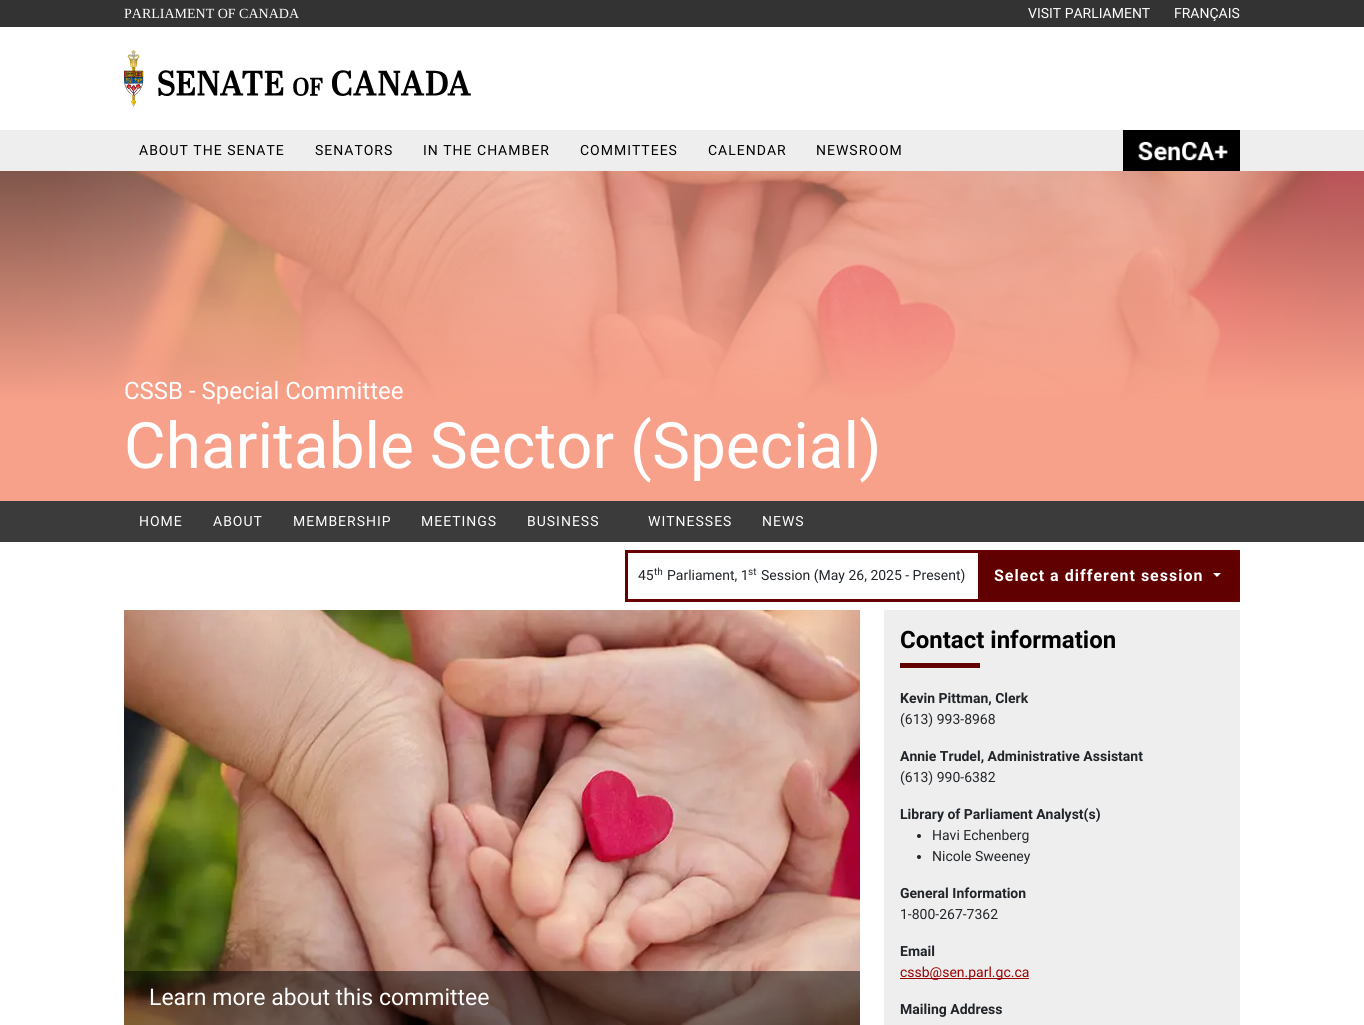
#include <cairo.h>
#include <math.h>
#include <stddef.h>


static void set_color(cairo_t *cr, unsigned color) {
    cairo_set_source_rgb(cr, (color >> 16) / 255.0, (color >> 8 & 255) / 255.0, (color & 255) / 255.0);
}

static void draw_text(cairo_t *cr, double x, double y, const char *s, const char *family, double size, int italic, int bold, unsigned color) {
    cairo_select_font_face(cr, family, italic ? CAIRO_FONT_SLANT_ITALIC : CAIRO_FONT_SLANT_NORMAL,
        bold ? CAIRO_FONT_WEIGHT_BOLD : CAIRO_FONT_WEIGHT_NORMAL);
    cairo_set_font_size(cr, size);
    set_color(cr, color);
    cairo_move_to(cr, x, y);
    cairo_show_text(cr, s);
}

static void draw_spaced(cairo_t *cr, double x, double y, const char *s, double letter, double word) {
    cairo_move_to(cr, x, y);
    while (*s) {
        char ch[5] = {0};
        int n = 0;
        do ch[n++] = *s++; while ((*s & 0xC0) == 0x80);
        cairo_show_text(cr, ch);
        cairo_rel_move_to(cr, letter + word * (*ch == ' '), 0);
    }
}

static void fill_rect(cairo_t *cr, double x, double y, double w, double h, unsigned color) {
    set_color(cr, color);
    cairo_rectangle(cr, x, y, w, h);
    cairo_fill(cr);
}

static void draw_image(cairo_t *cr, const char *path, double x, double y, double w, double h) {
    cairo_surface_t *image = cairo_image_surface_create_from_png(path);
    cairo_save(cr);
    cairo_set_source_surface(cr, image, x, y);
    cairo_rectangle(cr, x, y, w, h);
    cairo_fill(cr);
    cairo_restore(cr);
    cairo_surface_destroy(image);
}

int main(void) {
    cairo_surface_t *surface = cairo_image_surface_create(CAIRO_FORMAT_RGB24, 1364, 1025);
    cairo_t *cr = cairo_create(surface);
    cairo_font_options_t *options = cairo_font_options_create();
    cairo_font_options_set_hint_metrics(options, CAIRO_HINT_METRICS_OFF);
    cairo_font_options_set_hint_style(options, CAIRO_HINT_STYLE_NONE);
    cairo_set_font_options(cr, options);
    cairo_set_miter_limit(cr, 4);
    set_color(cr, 0xFFFFFF);
    cairo_paint(cr);
    fill_rect(cr, 0, 0, 1364, 27, 0x333333);
    draw_text(cr, 124, 18, "PARLIAMENT OF CANADA", "Liberation Serif", 14, 0, 0, 0xFFFFFF);
    draw_text(cr, 1028, 18, "VISIT PARLIAMENT", "Roboto", 14, 0, 0, 0xFFFFFF);
    draw_text(cr, 1174, 18, "FRANÇAIS", "Roboto", 14, 0, 0, 0xFFFFFF);
    draw_image(cr, "assets/img1.png", 124, 50, 347, 57);
    fill_rect(cr, 0, 130, 1364, 41, 0xEEEEEE);
    set_color(cr, 0x000000);
    draw_spaced(cr, 139, 155, "ABOUT THE SENATE", 1, 0);
    draw_spaced(cr, 315, 155, "SENATORS", 1, 0);
    draw_spaced(cr, 423, 155, "IN THE CHAMBER", 1, 0);
    draw_spaced(cr, 580, 155, "COMMITTEES", 1, 0);
    draw_spaced(cr, 708, 155, "CALENDAR", 1, 0);
    draw_spaced(cr, 816, 155, "NEWSROOM", 1, 0);
    fill_rect(cr, 1123, 130, 117, 41, 0x000000);
    draw_image(cr, "assets/img2.png", 1138, 141, 90, 20);
    draw_image(cr, "assets/img3.png", 0, 171, 1364, 330);
    draw_text(cr, 124, 399, "CSSB - Special Committee", "Roboto", 24, 0, 0, 0xFFFFFF);
    draw_text(cr, 124, 468, "Charitable Sector (Special)", "Roboto", 64, 0, 0, 0xFFFFFF);
    fill_rect(cr, 0, 501, 1364, 41, 0x3B3B3B);
    cairo_set_font_size(cr, 14);
    set_color(cr, 0xFFFFFF);
    draw_spaced(cr, 139, 526, "HOME", 1, 0);
    draw_spaced(cr, 213, 526, "ABOUT", 1, 0);
    draw_spaced(cr, 293, 526, "MEMBERSHIP", 1, 0);
    draw_spaced(cr, 421, 526, "MEETINGS", 1, 0);
    draw_spaced(cr, 527, 526, "BUSINESS", 1, 0);
    draw_spaced(cr, 648, 526, "WITNESSES", 1, 0);
    draw_spaced(cr, 762, 526, "NEWS", 1, 0);
    cairo_rectangle(cr, 626.5, 551.5, 612, 49);
    set_color(cr, 0x660000);
    cairo_set_line_width(cr, 3);
    cairo_stroke(cr);
    draw_text(cr, 638, 580, "45", "Roboto", 14, 0, 0, 0x212529);
    draw_text(cr, 654, 575, "th", "Roboto", 10, 0, 0, 0x212529);
    draw_text(cr, 667, 580, "Parliament, 1", "Roboto", 14, 0, 0, 0x212529);
    draw_text(cr, 748, 575, "st", "Roboto", 10, 0, 0, 0x212529);
    draw_text(cr, 761, 580, "Session (May 26, 2025 - Present)", "Roboto", 14, 0, 0, 0x212529);
    fill_rect(cr, 978, 553, 259, 46, 0x600000);
    cairo_select_font_face(cr, "Roboto", CAIRO_FONT_SLANT_NORMAL, CAIRO_FONT_WEIGHT_BOLD);
    cairo_set_font_size(cr, 16);
    set_color(cr, 0xFFFFFF);
    draw_spaced(cr, 994, 581, "Select a different session", 1, 0);
    cairo_new_path(cr);
    cairo_move_to(cr, 1213, 573);
    cairo_line_to(cr, 1221, 573);
    cairo_line_to(cr, 1217, 577);
    cairo_close_path(cr);
    cairo_fill(cr);
    draw_image(cr, "assets/img4.png", 124, 610, 736, 415);
    cairo_set_source_rgba(cr, 0, 0, 0, 0.5);
    cairo_rectangle(cr, 124, 971, 736, 54);
    cairo_fill(cr);
    draw_text(cr, 149, 1005, "Learn more about this committee", "Roboto", 23, 0, 0, 0xFFFFFF);
    fill_rect(cr, 884, 610, 356, 415, 0xEEEEEE);
    draw_text(cr, 900, 648, "Contact information", "Roboto", 24, 0, 1, 0x000000);
    fill_rect(cr, 900, 663, 80, 5, 0x600000);
    draw_text(cr, 900, 703, "Kevin Pittman, Clerk", "Roboto", 14, 0, 1, 0x212529);
    draw_text(cr, 900, 724, "(613) 993-8968", "Roboto", 14, 0, 0, 0x212529);
    draw_text(cr, 900, 761, "Annie Trudel, Administrative Assistant", "Roboto", 14, 0, 1, 0x212529);
    draw_text(cr, 900, 782, "(613) 990-6382", "Roboto", 14, 0, 0, 0x212529);
    draw_text(cr, 900, 819, "Library of Parliament Analyst(s)", "Roboto", 14, 0, 1, 0x212529);
    cairo_new_path(cr);
    cairo_arc(cr, 919, 836, 2, 0, 2 * M_PI);
    cairo_fill(cr);
    draw_text(cr, 932, 840, "Havi Echenberg", "Roboto", 14, 0, 0, 0x212529);
    cairo_new_path(cr);
    cairo_arc(cr, 919, 857, 2, 0, 2 * M_PI);
    cairo_fill(cr);
    draw_text(cr, 932, 861, "Nicole Sweeney", "Roboto", 14, 0, 0, 0x212529);
    draw_text(cr, 900, 898, "General Information", "Roboto", 14, 0, 1, 0x212529);
    draw_text(cr, 900, 919, "1-800-267-7362", "Roboto", 14, 0, 0, 0x212529);
    draw_text(cr, 900, 956, "Email", "Roboto", 14, 0, 1, 0x212529);
    fill_rect(cr, 900, 978, 129, 1, 0x990000);
    draw_text(cr, 900, 977, "cssb@sen.parl.gc.ca", "Roboto", 14, 0, 0, 0x990000);
    draw_text(cr, 900, 1014, "Mailing Address", "Roboto", 14, 0, 1, 0x212529);
    cairo_surface_write_to_png(surface, "output.png");
    cairo_font_options_destroy(options);
    cairo_destroy(cr);
    cairo_surface_destroy(surface);
    return 0;
}
